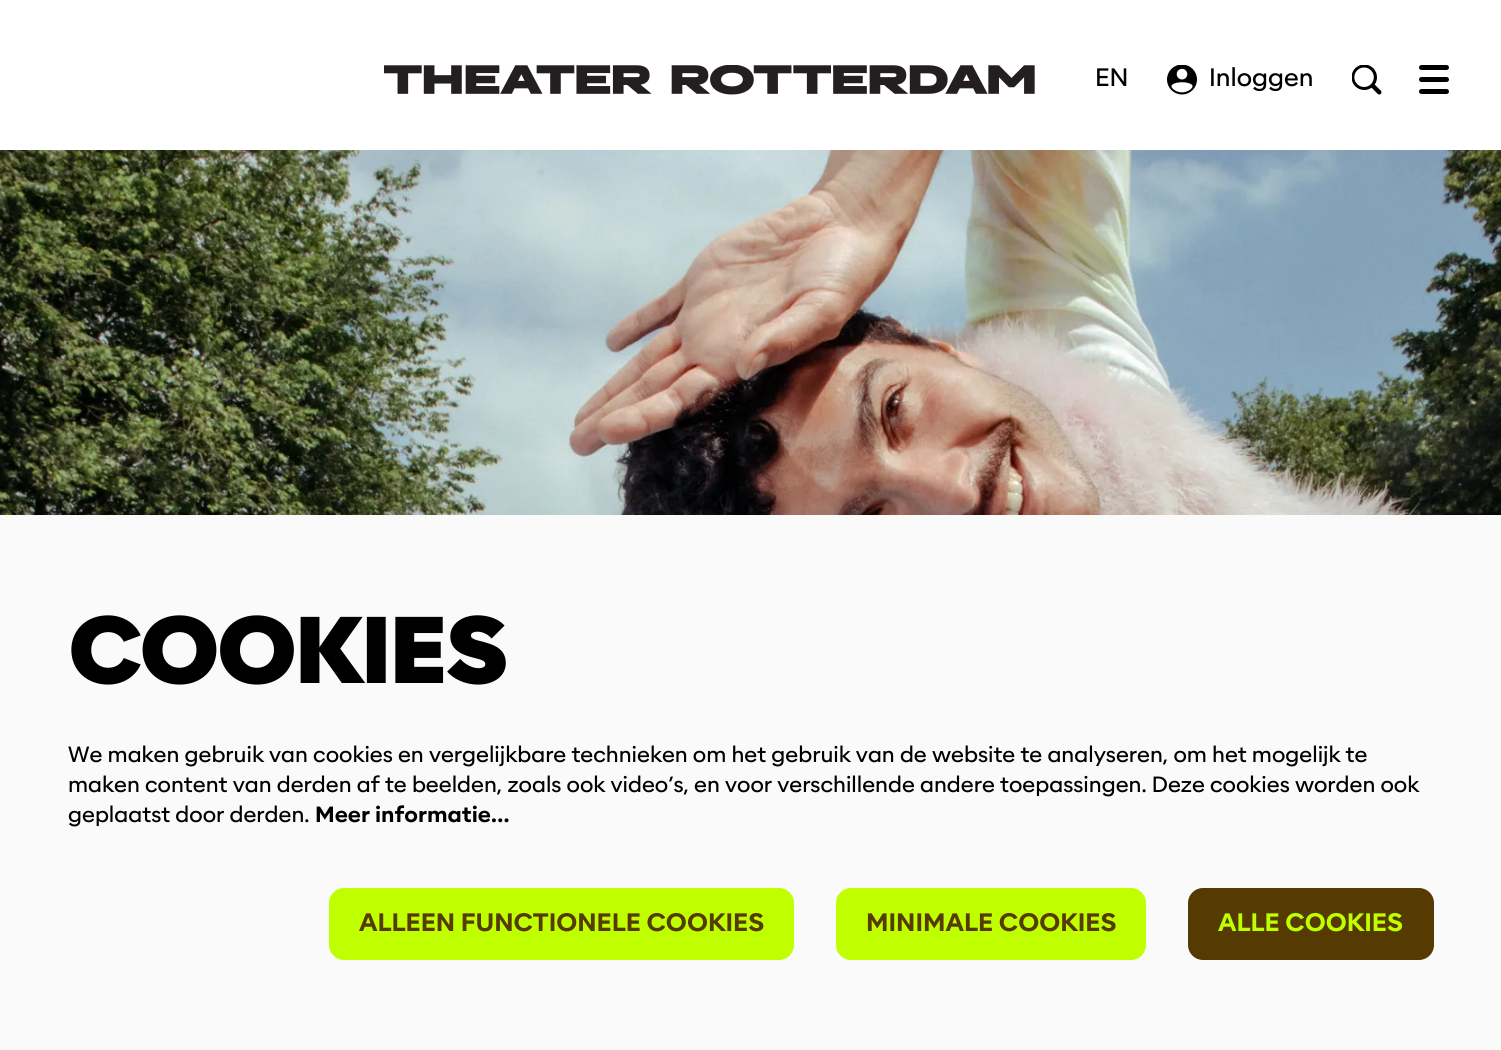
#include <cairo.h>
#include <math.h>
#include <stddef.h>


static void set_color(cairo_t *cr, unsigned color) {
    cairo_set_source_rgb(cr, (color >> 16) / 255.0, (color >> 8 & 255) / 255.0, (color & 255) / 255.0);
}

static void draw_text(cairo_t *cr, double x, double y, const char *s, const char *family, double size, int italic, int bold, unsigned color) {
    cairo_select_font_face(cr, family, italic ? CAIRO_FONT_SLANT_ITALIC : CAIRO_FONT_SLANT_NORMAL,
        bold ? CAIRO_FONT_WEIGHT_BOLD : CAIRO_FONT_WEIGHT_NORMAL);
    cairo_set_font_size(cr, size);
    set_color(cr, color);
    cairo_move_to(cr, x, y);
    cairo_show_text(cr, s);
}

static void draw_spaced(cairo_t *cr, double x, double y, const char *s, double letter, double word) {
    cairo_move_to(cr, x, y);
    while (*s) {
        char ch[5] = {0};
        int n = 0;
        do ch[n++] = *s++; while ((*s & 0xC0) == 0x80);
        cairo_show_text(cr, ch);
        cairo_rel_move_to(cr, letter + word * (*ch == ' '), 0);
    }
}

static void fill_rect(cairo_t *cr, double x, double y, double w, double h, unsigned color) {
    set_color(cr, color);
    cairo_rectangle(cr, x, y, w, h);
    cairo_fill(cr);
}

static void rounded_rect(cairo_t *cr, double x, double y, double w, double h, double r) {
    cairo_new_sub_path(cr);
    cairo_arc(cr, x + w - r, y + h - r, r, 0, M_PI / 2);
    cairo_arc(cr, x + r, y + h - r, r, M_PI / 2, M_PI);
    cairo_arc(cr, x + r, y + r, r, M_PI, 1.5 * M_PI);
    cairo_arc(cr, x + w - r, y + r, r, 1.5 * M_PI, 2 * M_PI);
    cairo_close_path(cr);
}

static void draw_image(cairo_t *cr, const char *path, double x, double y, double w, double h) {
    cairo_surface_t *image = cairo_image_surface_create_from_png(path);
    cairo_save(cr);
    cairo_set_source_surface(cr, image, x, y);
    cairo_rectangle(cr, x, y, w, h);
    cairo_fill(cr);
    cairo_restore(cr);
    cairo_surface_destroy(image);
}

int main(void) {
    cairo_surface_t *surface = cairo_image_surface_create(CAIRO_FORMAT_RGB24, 1501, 1050);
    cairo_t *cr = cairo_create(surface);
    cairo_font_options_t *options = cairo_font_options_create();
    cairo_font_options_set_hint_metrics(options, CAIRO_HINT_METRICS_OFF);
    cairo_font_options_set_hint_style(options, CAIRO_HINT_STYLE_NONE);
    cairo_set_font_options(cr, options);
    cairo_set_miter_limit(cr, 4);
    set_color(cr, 0xFFFFFF);
    cairo_paint(cr);
    draw_image(cr, "assets/img1.png", 384, 65, 651, 30);
    draw_text(cr, 1095, 86, "EN", "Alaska", 24, 0, 0, 0x000000);
    draw_image(cr, "assets/img2.png", 1167, 65, 30, 30);
    draw_text(cr, 1209, 86, "Inloggen", "Alaska", 24, 0, 0, 0x000000);
    draw_image(cr, "assets/img3.png", 1352, 65, 30, 30);
    rounded_rect(cr, 1419, 65, 30, 5, 2.5);
    cairo_fill(cr);
    rounded_rect(cr, 1419, 77, 30, 5, 2.5);
    cairo_fill(cr);
    rounded_rect(cr, 1419, 89, 30, 5, 2.5);
    cairo_fill(cr);
    draw_image(cr, "assets/img4.png", 0, 150, 1501, 365);
    fill_rect(cr, 0, 515, 1501, 535, 0xFAFAFA);
    cairo_select_font_face(cr, "Alaska ExtraBold", CAIRO_FONT_SLANT_NORMAL, CAIRO_FONT_WEIGHT_NORMAL);
    cairo_set_font_size(cr, 90);
    set_color(cr, 0x000000);
    draw_spaced(cr, 68, 683, "COOKIES", -3, 0);
    draw_text(cr, 68, 762, "We maken gebruik van cookies en vergelijkbare technieken om het gebruik van de website te analyseren, om het mogelijk te", "Alaska", 21, 0, 0, 0x000000);
    draw_text(cr, 68, 792, "maken content van derden af te beelden, zoals ook video’s, en voor verschillende andere toepassingen. Deze cookies worden ook", "Alaska", 21, 0, 0, 0x000000);
    draw_text(cr, 68, 822, "geplaatst door derden.", "Alaska", 21, 0, 0, 0x000000);
    draw_text(cr, 315, 822, "Meer informatie…", "Alaska SemiBold", 21, 0, 0, 0x000000);
    set_color(cr, 0xBFFF00);
    rounded_rect(cr, 329, 888, 465, 72, 15);
    cairo_fill(cr);
    draw_text(cr, 359, 931, "ALLEEN FUNCTIONELE COOKIES", "Alaska SemiBold", 24, 0, 0, 0x553A01);
    set_color(cr, 0xBFFF00);
    rounded_rect(cr, 836, 888, 310, 72, 15);
    cairo_fill(cr);
    draw_text(cr, 866, 931, "MINIMALE COOKIES", "Alaska SemiBold", 24, 0, 0, 0x553A01);
    rounded_rect(cr, 1188, 888, 246, 72, 15);
    cairo_fill(cr);
    draw_text(cr, 1218, 931, "ALLE COOKIES", "Alaska SemiBold", 24, 0, 0, 0xBFFF00);
    cairo_surface_write_to_png(surface, "output.png");
    cairo_font_options_destroy(options);
    cairo_destroy(cr);
    cairo_surface_destroy(surface);
    return 0;
}
